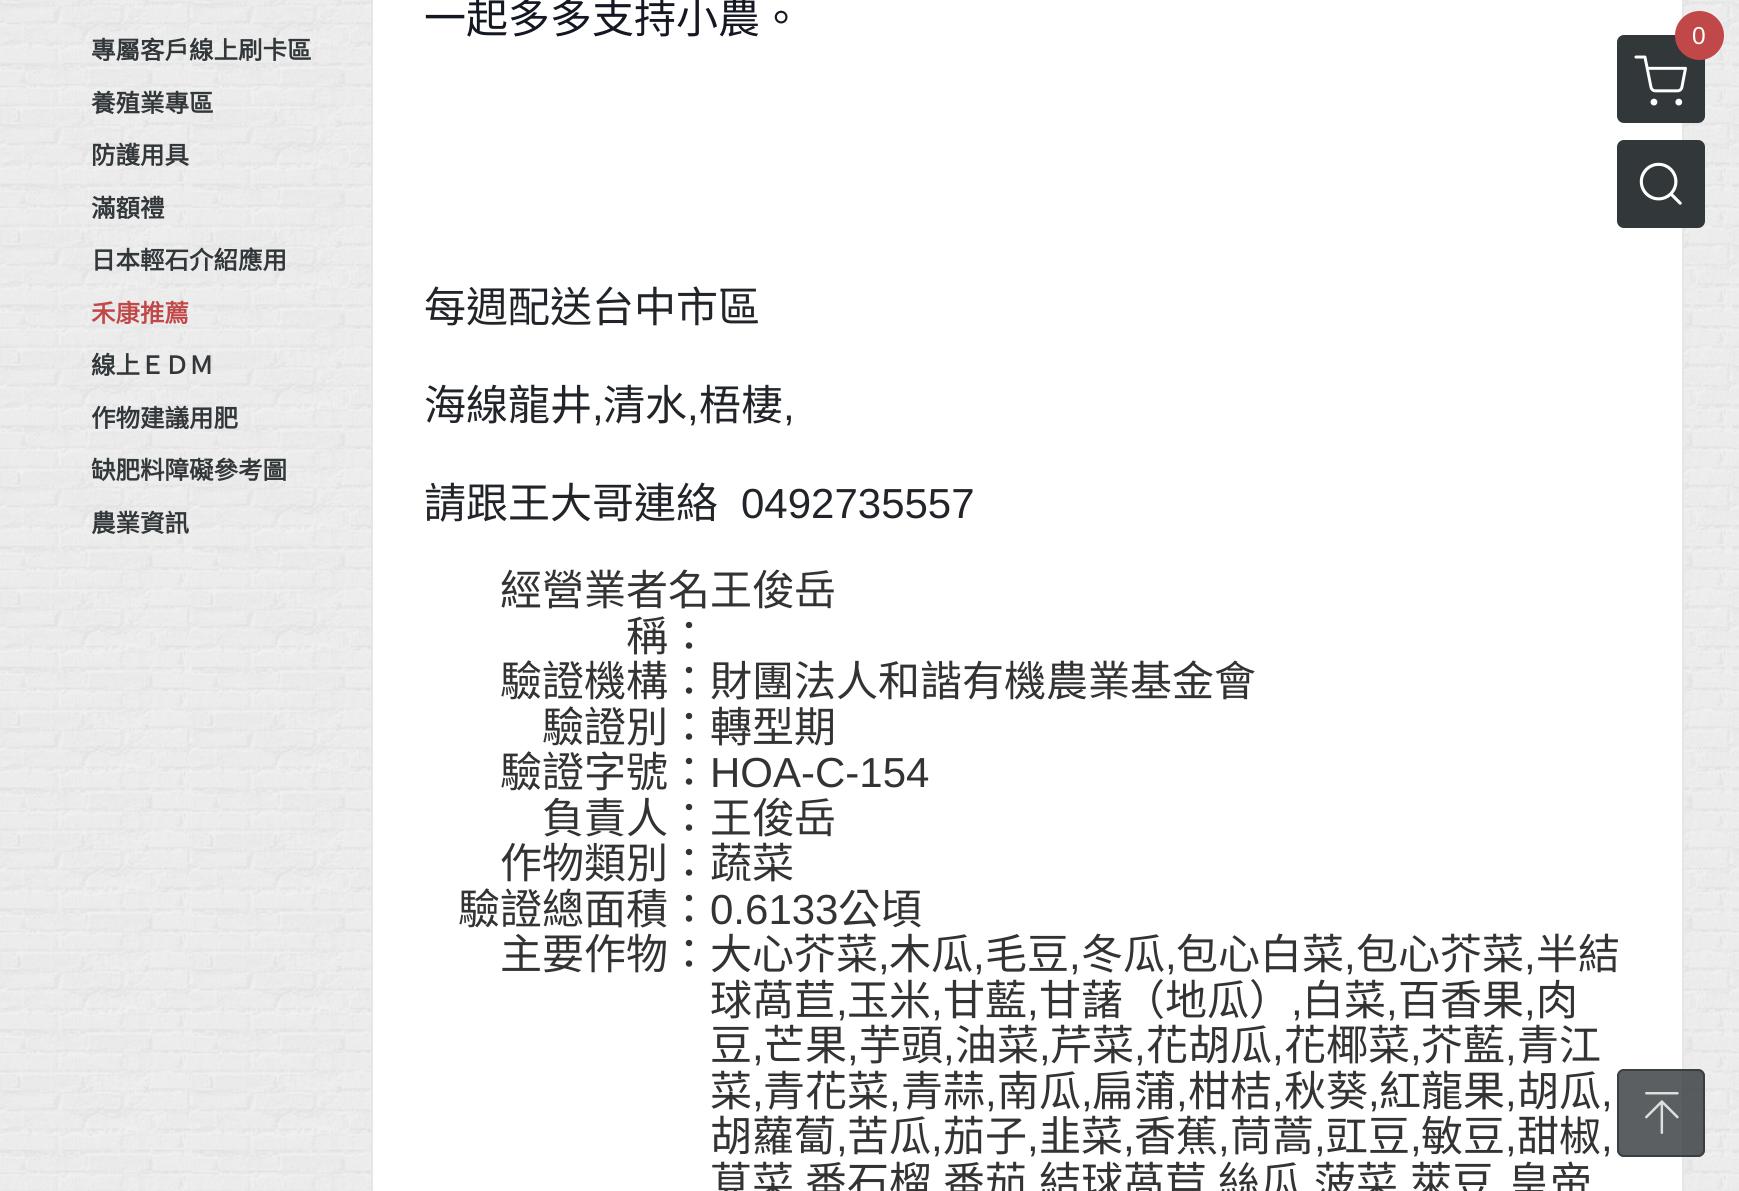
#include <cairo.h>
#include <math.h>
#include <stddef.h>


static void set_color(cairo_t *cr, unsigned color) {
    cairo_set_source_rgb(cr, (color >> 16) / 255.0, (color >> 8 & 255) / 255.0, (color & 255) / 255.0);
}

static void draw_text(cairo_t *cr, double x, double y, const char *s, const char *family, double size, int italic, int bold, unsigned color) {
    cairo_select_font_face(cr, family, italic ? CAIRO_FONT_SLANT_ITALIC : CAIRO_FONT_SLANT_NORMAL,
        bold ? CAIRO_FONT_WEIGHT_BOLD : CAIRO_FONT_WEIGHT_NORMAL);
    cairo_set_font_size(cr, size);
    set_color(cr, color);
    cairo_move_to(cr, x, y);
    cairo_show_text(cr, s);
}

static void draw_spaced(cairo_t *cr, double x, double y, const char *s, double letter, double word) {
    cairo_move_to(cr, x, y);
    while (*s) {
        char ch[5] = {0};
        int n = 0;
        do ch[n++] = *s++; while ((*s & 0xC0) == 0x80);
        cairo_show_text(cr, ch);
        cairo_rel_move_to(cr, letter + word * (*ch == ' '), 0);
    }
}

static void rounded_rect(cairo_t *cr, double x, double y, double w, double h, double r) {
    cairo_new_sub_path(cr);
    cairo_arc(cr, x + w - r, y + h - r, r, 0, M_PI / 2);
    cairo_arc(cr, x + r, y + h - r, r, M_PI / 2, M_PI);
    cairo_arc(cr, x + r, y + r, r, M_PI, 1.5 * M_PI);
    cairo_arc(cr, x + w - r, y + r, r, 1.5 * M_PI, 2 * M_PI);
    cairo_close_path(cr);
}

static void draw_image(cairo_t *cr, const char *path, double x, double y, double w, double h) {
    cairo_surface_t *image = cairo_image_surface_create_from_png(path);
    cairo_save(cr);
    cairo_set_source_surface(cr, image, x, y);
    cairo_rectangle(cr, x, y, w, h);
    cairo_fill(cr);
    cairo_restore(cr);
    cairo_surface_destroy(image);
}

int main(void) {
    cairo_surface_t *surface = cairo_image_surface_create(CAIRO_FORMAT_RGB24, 1739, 1191);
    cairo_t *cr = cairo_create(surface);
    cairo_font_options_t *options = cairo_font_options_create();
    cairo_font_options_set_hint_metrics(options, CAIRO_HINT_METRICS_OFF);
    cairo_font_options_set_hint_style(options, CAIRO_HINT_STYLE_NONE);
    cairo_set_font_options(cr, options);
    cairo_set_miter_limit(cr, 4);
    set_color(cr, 0xFFFFFF);
    cairo_paint(cr);
    draw_image(cr, "assets/img1.png", 0, 0, 1739, 1191);
    draw_text(cr, 91, 59, "專屬客戶線上刷卡區", "Noto Sans CJK TC", 24.5, 0, 1, 0x32373A);
    draw_text(cr, 91, 112, "養殖業專區", "Noto Sans CJK TC", 24.5, 0, 1, 0x32373A);
    draw_text(cr, 91, 164, "防護用具", "Noto Sans CJK TC", 24.5, 0, 1, 0x32373A);
    draw_text(cr, 91, 217, "滿額禮", "Noto Sans CJK TC", 24.5, 0, 1, 0x32373A);
    draw_text(cr, 91, 269, "日本輕石介紹應用", "Noto Sans CJK TC", 24.5, 0, 1, 0x32373A);
    draw_text(cr, 91, 322, "禾康推薦", "Noto Sans CJK TC", 24.5, 0, 1, 0xC14848);
    draw_text(cr, 91, 374, "線上ＥＤＭ", "Noto Sans CJK TC", 24.5, 0, 1, 0x32373A);
    draw_text(cr, 91, 427, "作物建議用肥", "Noto Sans CJK TC", 24.5, 0, 1, 0x32373A);
    draw_text(cr, 91, 479, "缺肥料障礙參考圖", "Noto Sans CJK TC", 24.5, 0, 1, 0x32373A);
    draw_text(cr, 91, 532, "農業資訊", "Noto Sans CJK TC", 24.5, 0, 1, 0x32373A);
    set_color(cr, 0xFFFFFF);
    cairo_rectangle(cr, 372, -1, 1311, 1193);
    cairo_fill_preserve(cr);
    set_color(cr, 0xE6E6E6);
    cairo_stroke(cr);
    draw_text(cr, 424, 33, "一起多多支持小農。", "Noto Sans CJK TC", 42, 0, 0, 0x141823);
    draw_text(cr, 424, 322, "每週配送台中市區", "Noto Sans CJK TC", 42, 0, 0, 0x212529);
    draw_text(cr, 424, 420, "海線龍井", "Noto Sans CJK TC", 42, 0, 0, 0x212529);
    draw_text(cr, 592, 420, ",", "Liberation Sans", 42, 0, 0, 0x212529);
    draw_text(cr, 603, 420, "清水", "Noto Sans CJK TC", 42, 0, 0, 0x212529);
    draw_text(cr, 687, 420, ",", "Liberation Sans", 42, 0, 0, 0x212529);
    draw_text(cr, 699, 420, "梧棲", "Noto Sans CJK TC", 42, 0, 0, 0x212529);
    draw_text(cr, 783, 420, ",", "Liberation Sans", 42, 0, 0, 0x212529);
    draw_text(cr, 424, 518, "請跟王大哥連絡", "Noto Sans CJK TC", 42, 0, 0, 0x212529);
    draw_text(cr, 741, 518, "0492735557", "Liberation Sans", 42, 0, 0, 0x212529);
    draw_text(cr, 500, 605, "經營業者名王俊岳", "Noto Sans CJK TC", 42, 0, 0, 0x333333);
    draw_text(cr, 626, 651, "稱：", "Noto Sans CJK TC", 42, 0, 0, 0x333333);
    draw_text(cr, 500, 696, "驗證機構：財團法人和諧有機農業基金會", "Noto Sans CJK TC", 42, 0, 0, 0x333333);
    draw_text(cr, 542, 742, "驗證別：轉型期", "Noto Sans CJK TC", 42, 0, 0, 0x333333);
    draw_text(cr, 500, 787, "驗證字號：", "Noto Sans CJK TC", 42, 0, 0, 0x333333);
    draw_text(cr, 710, 787, "HOA-C-154", "Liberation Sans", 42, 0, 0, 0x333333);
    draw_text(cr, 542, 833, "負責人：王俊岳", "Noto Sans CJK TC", 42, 0, 0, 0x333333);
    draw_text(cr, 500, 878, "作物類別：蔬菜", "Noto Sans CJK TC", 42, 0, 0, 0x333333);
    draw_text(cr, 458, 924, "驗證總面積：", "Noto Sans CJK TC", 42, 0, 0, 0x333333);
    draw_text(cr, 710, 924, "0.6133", "Liberation Sans", 42, 0, 0, 0x333333);
    draw_text(cr, 838, 924, "公頃", "Noto Sans CJK TC", 42, 0, 0, 0x333333);
    draw_text(cr, 500, 969, "主要作物：大心芥菜", "Noto Sans CJK TC", 42, 0, 0, 0x333333);
    draw_text(cr, 878, 969, ",", "Liberation Sans", 42, 0, 0, 0x333333);
    draw_text(cr, 889, 969, "木瓜", "Noto Sans CJK TC", 42, 0, 0, 0x333333);
    draw_text(cr, 973, 969, ",", "Liberation Sans", 42, 0, 0, 0x333333);
    draw_text(cr, 985, 969, "毛豆", "Noto Sans CJK TC", 42, 0, 0, 0x333333);
    draw_text(cr, 1069, 969, ",", "Liberation Sans", 42, 0, 0, 0x333333);
    draw_text(cr, 1081, 969, "冬瓜", "Noto Sans CJK TC", 42, 0, 0, 0x333333);
    draw_text(cr, 1165, 969, ",", "Liberation Sans", 42, 0, 0, 0x333333);
    draw_text(cr, 1176, 969, "包心白菜", "Noto Sans CJK TC", 42, 0, 0, 0x333333);
    draw_text(cr, 1344, 969, ",", "Liberation Sans", 42, 0, 0, 0x333333);
    draw_text(cr, 1356, 969, "包心芥菜", "Noto Sans CJK TC", 42, 0, 0, 0x333333);
    draw_text(cr, 1524, 969, ",", "Liberation Sans", 42, 0, 0, 0x333333);
    draw_text(cr, 1536, 969, "半結", "Noto Sans CJK TC", 42, 0, 0, 0x333333);
    draw_text(cr, 710, 1015, "球萵苣", "Noto Sans CJK TC", 42, 0, 0, 0x333333);
    draw_text(cr, 836, 1015, ",", "Liberation Sans", 42, 0, 0, 0x333333);
    draw_text(cr, 847, 1015, "玉米", "Noto Sans CJK TC", 42, 0, 0, 0x333333);
    draw_text(cr, 931, 1015, ",", "Liberation Sans", 42, 0, 0, 0x333333);
    draw_text(cr, 943, 1015, "甘藍", "Noto Sans CJK TC", 42, 0, 0, 0x333333);
    draw_text(cr, 1027, 1015, ",", "Liberation Sans", 42, 0, 0, 0x333333);
    draw_text(cr, 1039, 1015, "甘藷（地瓜）", "Noto Sans CJK TC", 42, 0, 0, 0x333333);
    draw_text(cr, 1291, 1015, ",", "Liberation Sans", 42, 0, 0, 0x333333);
    draw_text(cr, 1302, 1015, "白菜", "Noto Sans CJK TC", 42, 0, 0, 0x333333);
    draw_text(cr, 1386, 1015, ",", "Liberation Sans", 42, 0, 0, 0x333333);
    draw_text(cr, 1398, 1015, "百香果", "Noto Sans CJK TC", 42, 0, 0, 0x333333);
    draw_text(cr, 1524, 1015, ",", "Liberation Sans", 42, 0, 0, 0x333333);
    draw_text(cr, 1536, 1015, "肉", "Noto Sans CJK TC", 42, 0, 0, 0x333333);
    draw_text(cr, 710, 1060, "豆", "Noto Sans CJK TC", 42, 0, 0, 0x333333);
    draw_text(cr, 752, 1060, ",", "Liberation Sans", 42, 0, 0, 0x333333);
    draw_text(cr, 763, 1060, "芒果", "Noto Sans CJK TC", 42, 0, 0, 0x333333);
    draw_text(cr, 847, 1060, ",", "Liberation Sans", 42, 0, 0, 0x333333);
    draw_text(cr, 859, 1060, "芋頭", "Noto Sans CJK TC", 42, 0, 0, 0x333333);
    draw_text(cr, 943, 1060, ",", "Liberation Sans", 42, 0, 0, 0x333333);
    draw_text(cr, 955, 1060, "油菜", "Noto Sans CJK TC", 42, 0, 0, 0x333333);
    draw_text(cr, 1039, 1060, ",", "Liberation Sans", 42, 0, 0, 0x333333);
    draw_text(cr, 1050, 1060, "芹菜", "Noto Sans CJK TC", 42, 0, 0, 0x333333);
    draw_text(cr, 1134, 1060, ",", "Liberation Sans", 42, 0, 0, 0x333333);
    draw_text(cr, 1146, 1060, "花胡瓜", "Noto Sans CJK TC", 42, 0, 0, 0x333333);
    draw_text(cr, 1272, 1060, ",", "Liberation Sans", 42, 0, 0, 0x333333);
    draw_text(cr, 1284, 1060, "花椰菜", "Noto Sans CJK TC", 42, 0, 0, 0x333333);
    draw_text(cr, 1410, 1060, ",", "Liberation Sans", 42, 0, 0, 0x333333);
    draw_text(cr, 1421, 1060, "芥藍", "Noto Sans CJK TC", 42, 0, 0, 0x333333);
    draw_text(cr, 1505, 1060, ",", "Liberation Sans", 42, 0, 0, 0x333333);
    draw_text(cr, 1517, 1060, "青江", "Noto Sans CJK TC", 42, 0, 0, 0x333333);
    draw_text(cr, 710, 1106, "菜", "Noto Sans CJK TC", 42, 0, 0, 0x333333);
    draw_text(cr, 752, 1106, ",", "Liberation Sans", 42, 0, 0, 0x333333);
    draw_text(cr, 763, 1106, "青花菜", "Noto Sans CJK TC", 42, 0, 0, 0x333333);
    draw_text(cr, 889, 1106, ",", "Liberation Sans", 42, 0, 0, 0x333333);
    draw_text(cr, 901, 1106, "青蒜", "Noto Sans CJK TC", 42, 0, 0, 0x333333);
    draw_text(cr, 985, 1106, ",", "Liberation Sans", 42, 0, 0, 0x333333);
    draw_text(cr, 997, 1106, "南瓜", "Noto Sans CJK TC", 42, 0, 0, 0x333333);
    draw_text(cr, 1081, 1106, ",", "Liberation Sans", 42, 0, 0, 0x333333);
    draw_text(cr, 1092, 1106, "扁蒲", "Noto Sans CJK TC", 42, 0, 0, 0x333333);
    draw_text(cr, 1176, 1106, ",", "Liberation Sans", 42, 0, 0, 0x333333);
    draw_text(cr, 1188, 1106, "柑桔", "Noto Sans CJK TC", 42, 0, 0, 0x333333);
    draw_text(cr, 1272, 1106, ",", "Liberation Sans", 42, 0, 0, 0x333333);
    draw_text(cr, 1284, 1106, "秋葵", "Noto Sans CJK TC", 42, 0, 0, 0x333333);
    draw_text(cr, 1368, 1106, ",", "Liberation Sans", 42, 0, 0, 0x333333);
    draw_text(cr, 1379, 1106, "紅龍果", "Noto Sans CJK TC", 42, 0, 0, 0x333333);
    draw_text(cr, 1505, 1106, ",", "Liberation Sans", 42, 0, 0, 0x333333);
    draw_text(cr, 1517, 1106, "胡瓜", "Noto Sans CJK TC", 42, 0, 0, 0x333333);
    draw_text(cr, 1601, 1106, ",", "Liberation Sans", 42, 0, 0, 0x333333);
    draw_text(cr, 710, 1151, "胡蘿蔔", "Noto Sans CJK TC", 42, 0, 0, 0x333333);
    draw_text(cr, 836, 1151, ",", "Liberation Sans", 42, 0, 0, 0x333333);
    draw_text(cr, 847, 1151, "苦瓜", "Noto Sans CJK TC", 42, 0, 0, 0x333333);
    draw_text(cr, 931, 1151, ",", "Liberation Sans", 42, 0, 0, 0x333333);
    draw_text(cr, 943, 1151, "茄子", "Noto Sans CJK TC", 42, 0, 0, 0x333333);
    draw_text(cr, 1027, 1151, ",", "Liberation Sans", 42, 0, 0, 0x333333);
    draw_text(cr, 1039, 1151, "韭菜", "Noto Sans CJK TC", 42, 0, 0, 0x333333);
    draw_text(cr, 1123, 1151, ",", "Liberation Sans", 42, 0, 0, 0x333333);
    draw_text(cr, 1134, 1151, "香蕉", "Noto Sans CJK TC", 42, 0, 0, 0x333333);
    draw_text(cr, 1218, 1151, ",", "Liberation Sans", 42, 0, 0, 0x333333);
    draw_text(cr, 1230, 1151, "茼蒿", "Noto Sans CJK TC", 42, 0, 0, 0x333333);
    draw_text(cr, 1314, 1151, ",", "Liberation Sans", 42, 0, 0, 0x333333);
    draw_text(cr, 1326, 1151, "豇豆", "Noto Sans CJK TC", 42, 0, 0, 0x333333);
    draw_text(cr, 1410, 1151, ",", "Liberation Sans", 42, 0, 0, 0x333333);
    draw_text(cr, 1421, 1151, "敏豆", "Noto Sans CJK TC", 42, 0, 0, 0x333333);
    draw_text(cr, 1505, 1151, ",", "Liberation Sans", 42, 0, 0, 0x333333);
    draw_text(cr, 1517, 1151, "甜椒", "Noto Sans CJK TC", 42, 0, 0, 0x333333);
    draw_text(cr, 1601, 1151, ",", "Liberation Sans", 42, 0, 0, 0x333333);
    draw_text(cr, 710, 1197, "莧菜", "Noto Sans CJK TC", 42, 0, 0, 0x333333);
    draw_text(cr, 805, 1197, "番石榴", "Noto Sans CJK TC", 42, 0, 0, 0x333333);
    draw_text(cr, 943, 1197, "番茄", "Noto Sans CJK TC", 42, 0, 0, 0x333333);
    draw_text(cr, 1039, 1197, "結球萵苣", "Noto Sans CJK TC", 42, 0, 0, 0x333333);
    draw_text(cr, 1218, 1197, "絲瓜", "Noto Sans CJK TC", 42, 0, 0, 0x333333);
    draw_text(cr, 1314, 1197, "菠菜", "Noto Sans CJK TC", 42, 0, 0, 0x333333);
    draw_text(cr, 1410, 1197, "萊豆", "Noto Sans CJK TC", 42, 0, 0, 0x333333);
    draw_text(cr, 1508, 1197, "皇帝", "Noto Sans CJK TC", 42, 0, 0, 0x333333);
    set_color(cr, 0x32373A);
    rounded_rect(cr, 1618, 36, 86, 86, 6);
    cairo_fill_preserve(cr);
    cairo_stroke(cr);
    draw_image(cr, "assets/img2.png", 1634, 55, 53, 51);
    set_color(cr, 0xC14848);
    cairo_arc(cr, 1699.5, 35.5, 24.5, 0, 2 * M_PI);
    cairo_fill(cr);
    cairo_select_font_face(cr, "Liberation Sans", CAIRO_FONT_SLANT_NORMAL, CAIRO_FONT_WEIGHT_NORMAL);
    cairo_set_font_size(cr, 24.5);
    set_color(cr, 0xFFFFFF);
    draw_spaced(cr, 1692, 44, "0", 2, 0);
    set_color(cr, 0x32373A);
    rounded_rect(cr, 1618, 141, 86, 86, 6);
    cairo_fill_preserve(cr);
    cairo_stroke(cr);
    draw_image(cr, "assets/img3.png", 1639, 162, 43, 43);
    cairo_set_source_rgba(cr, 0.196, 0.216, 0.227, 0.8);
    rounded_rect(cr, 1617, 1069, 88, 88, 7);
    cairo_fill(cr);
    rounded_rect(cr, 1618, 1070, 86, 86, 6);
    cairo_stroke(cr);
    draw_image(cr, "assets/img4.png", 1645, 1092, 34, 42);
    cairo_surface_write_to_png(surface, "output.png");
    cairo_font_options_destroy(options);
    cairo_destroy(cr);
    cairo_surface_destroy(surface);
    return 0;
}
